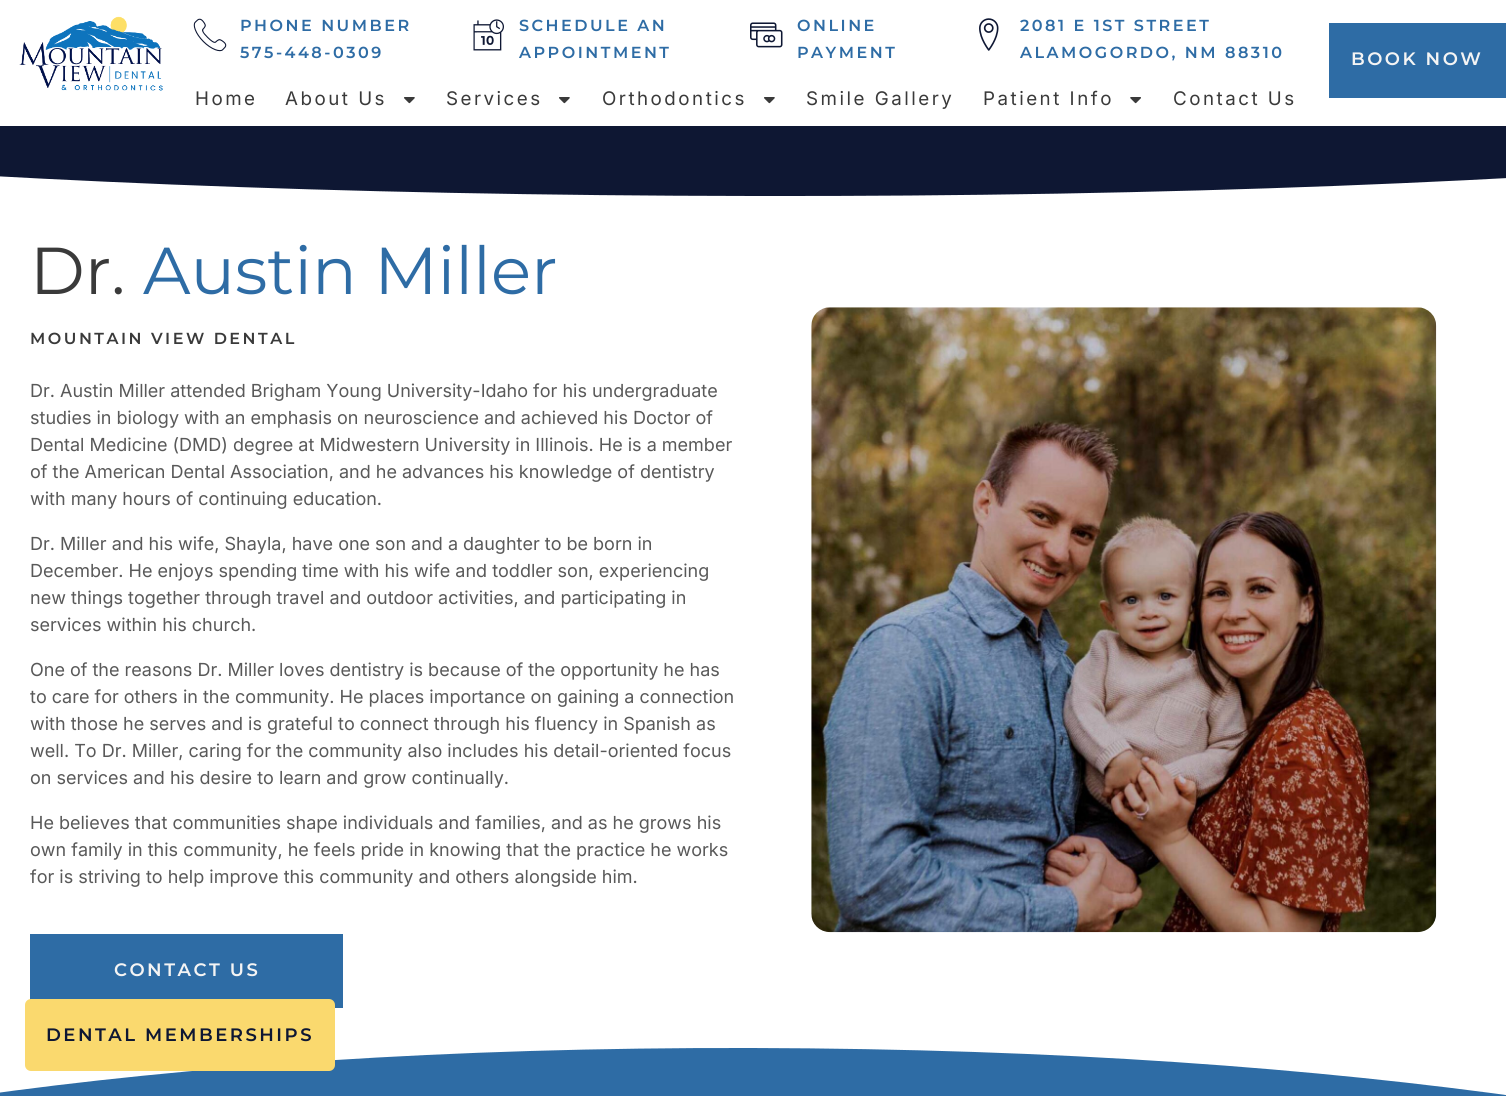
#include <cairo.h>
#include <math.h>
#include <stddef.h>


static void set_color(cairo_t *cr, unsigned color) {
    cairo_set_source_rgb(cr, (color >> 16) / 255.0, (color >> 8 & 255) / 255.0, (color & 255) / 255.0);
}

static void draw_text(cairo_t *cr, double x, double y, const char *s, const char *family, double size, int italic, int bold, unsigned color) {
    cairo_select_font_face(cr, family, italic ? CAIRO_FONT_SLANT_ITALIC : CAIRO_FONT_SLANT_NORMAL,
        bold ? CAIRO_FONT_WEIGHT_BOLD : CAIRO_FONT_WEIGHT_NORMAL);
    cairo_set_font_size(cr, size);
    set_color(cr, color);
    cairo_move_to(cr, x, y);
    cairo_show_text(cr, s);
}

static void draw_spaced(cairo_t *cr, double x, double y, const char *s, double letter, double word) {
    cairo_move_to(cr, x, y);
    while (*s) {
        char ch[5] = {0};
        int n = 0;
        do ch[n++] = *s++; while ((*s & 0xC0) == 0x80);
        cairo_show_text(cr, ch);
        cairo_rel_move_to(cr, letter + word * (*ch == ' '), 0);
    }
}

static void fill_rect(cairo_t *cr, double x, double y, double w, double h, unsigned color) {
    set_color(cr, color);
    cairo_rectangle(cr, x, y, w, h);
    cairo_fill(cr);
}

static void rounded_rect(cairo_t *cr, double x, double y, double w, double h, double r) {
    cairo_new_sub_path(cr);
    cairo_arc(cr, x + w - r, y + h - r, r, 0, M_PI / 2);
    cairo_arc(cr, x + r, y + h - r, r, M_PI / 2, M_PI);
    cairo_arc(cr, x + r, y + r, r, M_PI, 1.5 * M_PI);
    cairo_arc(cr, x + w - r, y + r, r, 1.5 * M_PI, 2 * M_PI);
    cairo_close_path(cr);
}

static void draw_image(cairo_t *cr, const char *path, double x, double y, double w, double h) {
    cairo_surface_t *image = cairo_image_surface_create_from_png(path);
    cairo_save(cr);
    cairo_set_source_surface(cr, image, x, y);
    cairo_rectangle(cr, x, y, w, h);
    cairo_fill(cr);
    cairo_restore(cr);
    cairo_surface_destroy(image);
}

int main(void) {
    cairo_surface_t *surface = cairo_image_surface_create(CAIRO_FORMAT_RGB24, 1506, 1096);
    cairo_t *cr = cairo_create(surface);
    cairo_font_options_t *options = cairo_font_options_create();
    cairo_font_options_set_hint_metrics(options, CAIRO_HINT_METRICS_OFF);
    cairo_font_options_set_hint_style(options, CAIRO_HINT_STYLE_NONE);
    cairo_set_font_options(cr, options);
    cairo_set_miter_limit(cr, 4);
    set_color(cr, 0xFFFFFF);
    cairo_paint(cr);
    draw_image(cr, "assets/img1.png", 19, 16, 144, 75);
    draw_image(cr, "assets/img2.png", 193, 18, 34, 34);
    cairo_select_font_face(cr, "Montserrat SemiBold", CAIRO_FONT_SLANT_NORMAL, CAIRO_FONT_WEIGHT_NORMAL);
    cairo_set_font_size(cr, 16);
    set_color(cr, 0x2E6CA5);
    draw_spaced(cr, 240, 31, "PHONE NUMBER", 2.5, 0);
    draw_spaced(cr, 240, 58, "575-448-0309", 2.5, 0);
    draw_image(cr, "assets/img3.png", 473, 19, 31, 32);
    draw_spaced(cr, 519, 31, "SCHEDULE AN", 2.5, 0);
    draw_spaced(cr, 519, 58, "APPOINTMENT", 2.5, 0);
    draw_image(cr, "assets/img4.png", 750, 22, 33, 26);
    draw_spaced(cr, 797, 31, "ONLINE", 2.5, 0);
    draw_spaced(cr, 797, 58, "PAYMENT", 2.5, 0);
    draw_image(cr, "assets/img5.png", 979, 18, 20, 33);
    draw_spaced(cr, 1020, 31, "2081 E 1ST STREET", 2.5, 0);
    draw_spaced(cr, 1020, 58, "ALAMOGORDO, NM 88310", 2.5, 0);
    cairo_select_font_face(cr, "Inter", CAIRO_FONT_SLANT_NORMAL, CAIRO_FONT_WEIGHT_NORMAL);
    cairo_set_font_size(cr, 18.75);
    set_color(cr, 0x3A3A3A);
    draw_spaced(cr, 195, 105, "Home", 2.5, 0);
    draw_spaced(cr, 285, 105, "About Us", 2.5, 0);
    draw_image(cr, "assets/img6.png", 404, 97, 11, 7);
    draw_spaced(cr, 446, 105, "Services", 2.5, 0);
    draw_image(cr, "assets/img6.png", 559, 97, 11, 7);
    draw_spaced(cr, 602, 105, "Orthodontics", 2.5, 0);
    draw_image(cr, "assets/img6.png", 764, 97, 11, 7);
    draw_spaced(cr, 806, 105, "Smile Gallery", 2.5, 0);
    draw_spaced(cr, 983, 105, "Patient Info", 2.5, 0);
    draw_image(cr, "assets/img7.png", 1130, 97, 11, 7);
    draw_spaced(cr, 1173, 105, "Contact Us", 2.5, 0);
    fill_rect(cr, 1329, 23, 177, 75, 0x2E6CA5);
    cairo_select_font_face(cr, "Montserrat SemiBold", CAIRO_FONT_SLANT_NORMAL, CAIRO_FONT_WEIGHT_NORMAL);
    cairo_set_font_size(cr, 18);
    set_color(cr, 0xF4F4F4);
    draw_spaced(cr, 1351, 65, "BOOK NOW", 2.5, 0);
    fill_rect(cr, 0, 126, 1506, 70, 0x0E1733);
    set_color(cr, 0xFFFFFF);
    cairo_new_path(cr);
    cairo_move_to(cr, 754, 196);
    cairo_curve_to(cr, -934, 194, -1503, -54, -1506, -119);
    cairo_line_to(cr, -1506, 206);
    cairo_line_to(cr, 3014, 206);
    cairo_line_to(cr, 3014, -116);
    cairo_curve_to(cr, 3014, -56, 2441, 199, 754, 196);
    cairo_close_path(cr);
    cairo_fill(cr);
    draw_text(cr, 30, 294, "Dr.", "Montserrat", 66.25, 0, 0, 0x3A3A3A);
    draw_text(cr, 143, 294, "Austin Miller", "Montserrat", 66.25, 0, 0, 0x2E6CA5);
    cairo_select_font_face(cr, "Montserrat SemiBold", CAIRO_FONT_SLANT_NORMAL, CAIRO_FONT_WEIGHT_NORMAL);
    cairo_set_font_size(cr, 16);
    set_color(cr, 0x3A3A3A);
    draw_spaced(cr, 30, 344, "MOUNTAIN VIEW DENTAL", 2.5, 0);
    draw_text(cr, 30, 397, "Dr. Austin Miller attended Brigham Young University-Idaho for his undergraduate", "Inter", 18, 0, 0, 0x595959);
    draw_text(cr, 30, 424, "studies in biology with an emphasis on neuroscience and achieved his Doctor of", "Inter", 18, 0, 0, 0x595959);
    draw_text(cr, 30, 451, "Dental Medicine (DMD) degree at Midwestern University in Illinois. He is a member", "Inter", 18, 0, 0, 0x595959);
    draw_text(cr, 30, 478, "of the American Dental Association, and he advances his knowledge of dentistry", "Inter", 18, 0, 0, 0x595959);
    draw_text(cr, 30, 505, "with many hours of continuing education.", "Inter", 18, 0, 0, 0x595959);
    draw_text(cr, 30, 550, "Dr. Miller and his wife, Shayla, have one son and a daughter to be born in", "Inter", 18, 0, 0, 0x595959);
    draw_text(cr, 30, 577, "December. He enjoys spending time with his wife and toddler son, experiencing", "Inter", 18, 0, 0, 0x595959);
    draw_text(cr, 30, 604, "new things together through travel and outdoor activities, and participating in", "Inter", 18, 0, 0, 0x595959);
    draw_text(cr, 30, 631, "services within his church.", "Inter", 18, 0, 0, 0x595959);
    draw_text(cr, 30, 676, "One of the reasons Dr. Miller loves dentistry is because of the opportunity he has", "Inter", 18, 0, 0, 0x595959);
    draw_text(cr, 30, 703, "to care for others in the community. He places importance on gaining a connection", "Inter", 18, 0, 0, 0x595959);
    draw_text(cr, 30, 730, "with those he serves and is grateful to connect through his fluency in Spanish as", "Inter", 18, 0, 0, 0x595959);
    draw_text(cr, 30, 757, "well. To Dr. Miller, caring for the community also includes his detail-oriented focus", "Inter", 18, 0, 0, 0x595959);
    draw_text(cr, 30, 784, "on services and his desire to learn and grow continually.", "Inter", 18, 0, 0, 0x595959);
    draw_text(cr, 30, 829, "He believes that communities shape individuals and families, and as he grows his", "Inter", 18, 0, 0, 0x595959);
    draw_text(cr, 30, 856, "own family in this community, he feels pride in knowing that the practice he works", "Inter", 18, 0, 0, 0x595959);
    draw_text(cr, 30, 883, "for is striving to help improve this community and others alongside him.", "Inter", 18, 0, 0, 0x595959);
    fill_rect(cr, 30, 934, 313, 74, 0x2E6CA5);
    cairo_select_font_face(cr, "Montserrat SemiBold", CAIRO_FONT_SLANT_NORMAL, CAIRO_FONT_WEIGHT_NORMAL);
    set_color(cr, 0xF4F4F4);
    draw_spaced(cr, 114, 976, "CONTACT US", 2.5, 0);
    draw_image(cr, "assets/img8.png", 811, 307, 626, 626);
    fill_rect(cr, 0, 1048, 1506, 48, 0x2E6CA5);
    cairo_save(cr);
    cairo_rectangle(cr, 0, 1038, 1506, 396);
    cairo_clip(cr);
    set_color(cr, 0xFFFFFF);
    cairo_new_path(cr);
    cairo_move_to(cr, 752, 1048);
    cairo_curve_to(cr, 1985, 1051, 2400, 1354, 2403, 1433);
    cairo_line_to(cr, 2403, 1037);
    cairo_line_to(cr, -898, 1037);
    cairo_line_to(cr, -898, 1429);
    cairo_curve_to(cr, -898, 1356, -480, 1045, 752, 1048);
    cairo_close_path(cr);
    cairo_fill(cr);
    cairo_restore(cr);
    set_color(cr, 0xFAD96E);
    rounded_rect(cr, 25, 999, 310, 72, 6);
    cairo_fill(cr);
    set_color(cr, 0x0E1733);
    draw_spaced(cr, 46, 1041, "DENTAL MEMBERSHIPS", 2.5, 0);
    cairo_surface_write_to_png(surface, "output.png");
    cairo_font_options_destroy(options);
    cairo_destroy(cr);
    cairo_surface_destroy(surface);
    return 0;
}
